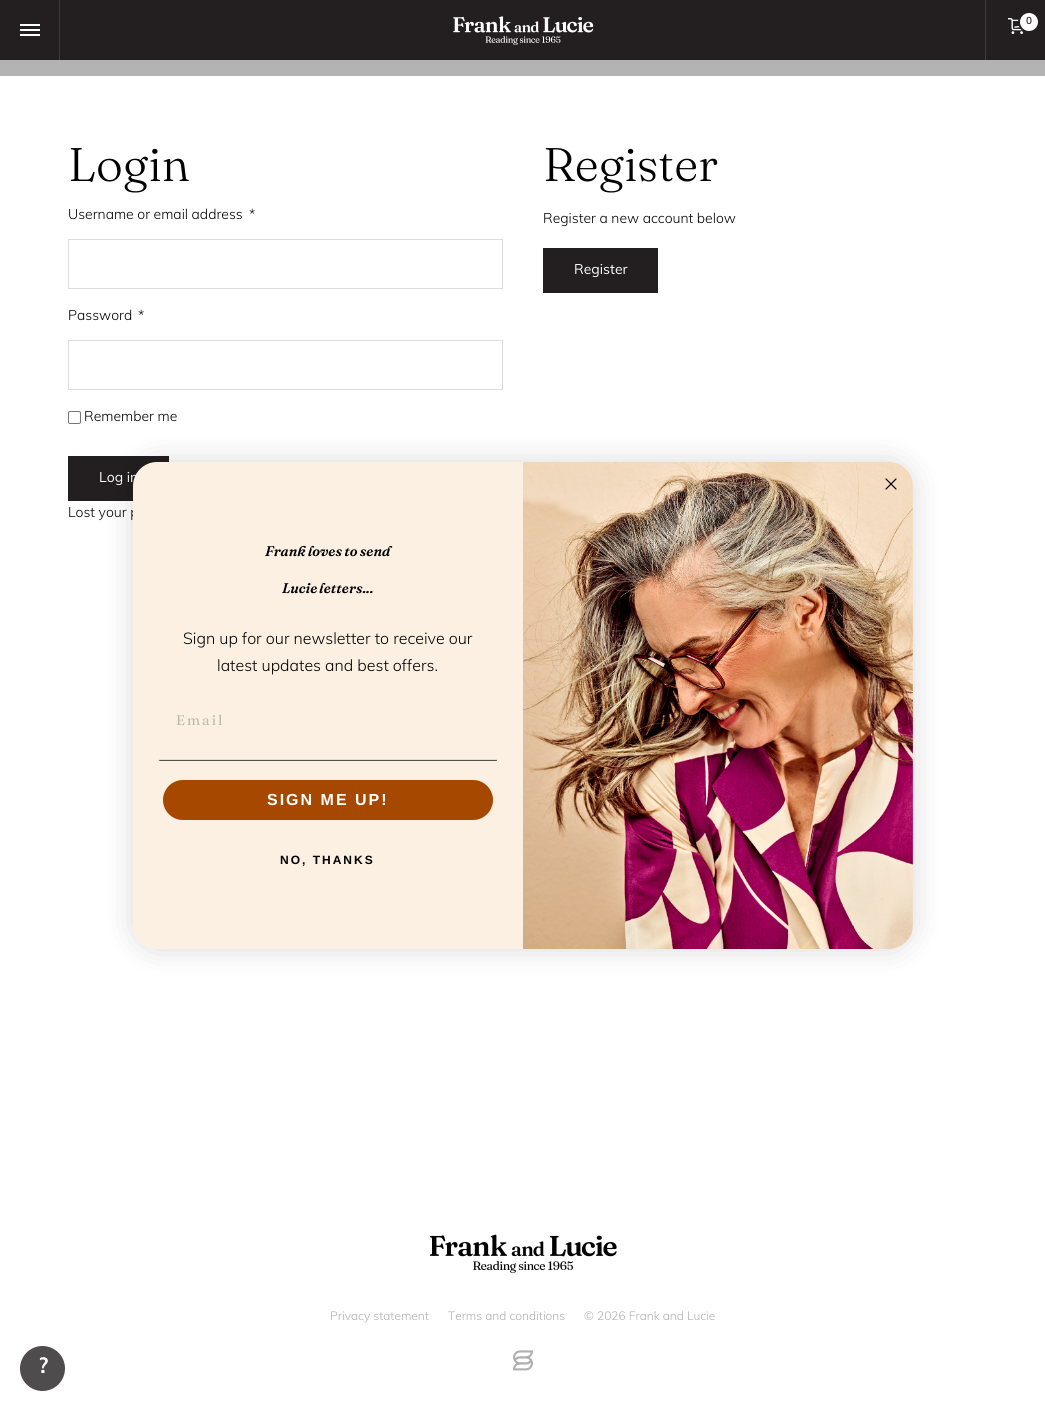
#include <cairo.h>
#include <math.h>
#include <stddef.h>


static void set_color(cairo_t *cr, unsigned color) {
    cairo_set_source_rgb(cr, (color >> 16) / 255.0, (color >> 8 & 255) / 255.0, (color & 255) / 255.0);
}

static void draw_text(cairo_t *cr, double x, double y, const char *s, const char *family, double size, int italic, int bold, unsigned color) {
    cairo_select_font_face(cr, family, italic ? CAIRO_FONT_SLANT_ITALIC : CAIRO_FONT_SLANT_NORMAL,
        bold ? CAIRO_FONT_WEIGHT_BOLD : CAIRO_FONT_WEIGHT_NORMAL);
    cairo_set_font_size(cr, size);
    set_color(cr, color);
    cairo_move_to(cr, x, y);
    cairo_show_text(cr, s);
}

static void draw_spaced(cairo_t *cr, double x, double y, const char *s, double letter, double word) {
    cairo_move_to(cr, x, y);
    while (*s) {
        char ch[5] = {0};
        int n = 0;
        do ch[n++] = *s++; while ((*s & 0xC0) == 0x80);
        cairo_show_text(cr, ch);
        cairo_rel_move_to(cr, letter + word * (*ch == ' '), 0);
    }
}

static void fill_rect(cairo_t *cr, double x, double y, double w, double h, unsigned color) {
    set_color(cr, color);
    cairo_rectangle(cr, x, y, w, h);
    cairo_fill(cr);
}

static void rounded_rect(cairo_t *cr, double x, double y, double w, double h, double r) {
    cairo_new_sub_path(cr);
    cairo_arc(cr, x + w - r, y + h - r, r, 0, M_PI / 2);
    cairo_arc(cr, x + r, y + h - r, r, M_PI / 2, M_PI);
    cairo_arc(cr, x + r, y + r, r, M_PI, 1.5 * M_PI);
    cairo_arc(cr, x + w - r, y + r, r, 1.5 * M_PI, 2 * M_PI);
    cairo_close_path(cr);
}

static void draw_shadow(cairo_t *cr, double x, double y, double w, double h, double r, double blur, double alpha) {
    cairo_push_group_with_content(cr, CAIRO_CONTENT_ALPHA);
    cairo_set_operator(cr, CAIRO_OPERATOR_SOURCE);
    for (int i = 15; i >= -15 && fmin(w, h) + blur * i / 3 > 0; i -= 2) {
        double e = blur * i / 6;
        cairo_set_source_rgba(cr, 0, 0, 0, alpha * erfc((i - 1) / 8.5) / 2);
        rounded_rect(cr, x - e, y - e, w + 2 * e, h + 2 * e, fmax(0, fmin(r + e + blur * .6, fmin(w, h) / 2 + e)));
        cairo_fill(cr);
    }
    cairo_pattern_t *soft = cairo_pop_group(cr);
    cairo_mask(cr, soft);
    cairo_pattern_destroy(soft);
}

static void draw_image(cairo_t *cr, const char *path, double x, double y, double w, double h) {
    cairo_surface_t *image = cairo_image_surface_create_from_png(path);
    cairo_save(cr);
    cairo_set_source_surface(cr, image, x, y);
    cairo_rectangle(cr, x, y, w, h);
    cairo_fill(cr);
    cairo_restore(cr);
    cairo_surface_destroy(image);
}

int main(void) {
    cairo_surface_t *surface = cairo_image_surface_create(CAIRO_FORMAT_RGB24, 1045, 1411);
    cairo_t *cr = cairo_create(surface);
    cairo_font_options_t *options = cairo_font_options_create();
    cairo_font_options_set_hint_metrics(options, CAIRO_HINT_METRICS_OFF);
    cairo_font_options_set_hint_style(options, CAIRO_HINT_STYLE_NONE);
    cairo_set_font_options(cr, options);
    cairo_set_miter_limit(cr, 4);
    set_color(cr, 0xFFFFFF);
    cairo_paint(cr);
    fill_rect(cr, 0, 0, 1045, 60, 0x231F20);
    fill_rect(cr, 59, 0, 1, 60, 0x3B3B3B);
    fill_rect(cr, 20, 29, 20, 2, 0xFFFFFF);
    fill_rect(cr, 20, 24, 20, 2, 0xFFFFFF);
    fill_rect(cr, 20, 34, 20, 2, 0xFFFFFF);
    draw_image(cr, "assets/img1.png", 453, 16, 141, 29);
    fill_rect(cr, 985, 0, 1, 60, 0x3B3B3B);
    draw_image(cr, "assets/img2.png", 1008, 18, 15, 16);
    set_color(cr, 0xFFFFFF);
    cairo_arc(cr, 1029, 22, 10, 0, 2 * M_PI);
    cairo_fill_preserve(cr);
    set_color(cr, 0x231F20);
    cairo_stroke(cr);
    draw_text(cr, 1026, 24, "0", "Muli SemiBold", 10, 0, 0, 0x231F20);
    fill_rect(cr, 0, 60, 1045, 16, 0xB3B3B3);
    draw_text(cr, 68, 181, "Login", "Fraunces Light", 47, 0, 0, 0x000000);
    draw_text(cr, 68, 219, "Username or email address", "Muli Light", 14, 0, 0, 0x000000);
    draw_text(cr, 249, 219, "*", "Muli Light", 14, 0, 0, 0x000000);
    cairo_rectangle(cr, 68.5, 239.5, 434, 49);
    set_color(cr, 0xDDDDDD);
    cairo_set_line_width(cr, 1);
    cairo_stroke(cr);
    draw_text(cr, 68, 320, "Password", "Muli Light", 14, 0, 0, 0x000000);
    draw_text(cr, 138, 320, "*", "Muli Light", 14, 0, 0, 0x000000);
    cairo_rectangle(cr, 68.5, 340.5, 434, 49);
    set_color(cr, 0xDDDDDD);
    cairo_stroke(cr);
    rounded_rect(cr, 68.5, 411.5, 12, 12, 1.5);
    set_color(cr, 0x767676);
    cairo_stroke(cr);
    draw_text(cr, 84, 421, "Remember me", "Muli Light", 14, 0, 0, 0x000000);
    fill_rect(cr, 68, 456, 101, 45, 0x231F20);
    draw_text(cr, 99, 482, "Log in", "Muli", 14, 0, 0, 0xFFFFFF);
    draw_text(cr, 68, 517, "Lost your p", "Muli Light", 14, 0, 0, 0x000000);
    draw_text(cr, 543, 181, "Register", "Fraunces Light", 47, 0, 0, 0x000000);
    draw_text(cr, 543, 223, "Register a new account below", "Muli Light", 14, 0, 0, 0x000000);
    fill_rect(cr, 543, 248, 115, 45, 0x231F20);
    draw_text(cr, 574, 274, "Register", "Muli", 14, 0, 0, 0xFFFFFF);
    set_color(cr, 0x000000);
    draw_shadow(cr, 133, 462, 780, 487, 24, 15, 0.15);
    set_color(cr, 0xFBF0E1);
    rounded_rect(cr, 133, 462, 780, 487, 24);
    cairo_fill(cr);
    draw_image(cr, "assets/img4.png", 523, 462, 390, 487);
    cairo_new_path(cr);
    cairo_move_to(cr, 886, 479);
    cairo_line_to(cr, 896, 489);
    cairo_move_to(cr, 886, 489);
    cairo_line_to(cr, 896, 479);
    cairo_close_path(cr);
    set_color(cr, 0x000000);
    cairo_set_line_width(cr, 1.2);
    cairo_set_line_cap(cr, CAIRO_LINE_CAP_ROUND);
    cairo_set_line_join(cr, CAIRO_LINE_JOIN_ROUND);
    cairo_stroke(cr);
    cairo_select_font_face(cr, "Fraunces SemiBold", CAIRO_FONT_SLANT_ITALIC, CAIRO_FONT_WEIGHT_NORMAL);
    draw_spaced(cr, 265, 556, "Frank loves to send", 0, -0.5);
    draw_spaced(cr, 282, 593, "Lucie letters...", 0, -1);
    draw_text(cr, 183, 644, "Sign up for our newsletter to receive our", "Muli Light", 16, 0, 0, 0x000000);
    draw_text(cr, 217, 671, "latest updates and best offers.", "Muli Light", 16, 0, 0, 0x000000);
    cairo_select_font_face(cr, "Fraunces", CAIRO_FONT_SLANT_NORMAL, CAIRO_FONT_WEIGHT_NORMAL);
    cairo_set_font_size(cr, 14);
    set_color(cr, 0xBFB9AF);
    draw_spaced(cr, 176, 725, "Email", 2, 0);
    draw_image(cr, "assets/img3.png", 158, 759, 339, 2);
    set_color(cr, 0xA74801);
    rounded_rect(cr, 163, 780, 330, 40, 20);
    cairo_fill(cr);
    cairo_select_font_face(cr, "Liberation Sans", CAIRO_FONT_SLANT_NORMAL, CAIRO_FONT_WEIGHT_BOLD);
    cairo_set_font_size(cr, 16);
    set_color(cr, 0xFFFFFF);
    draw_spaced(cr, 267, 805, "SIGN ME UP!", 2, 0);
    cairo_set_font_size(cr, 12);
    set_color(cr, 0x000000);
    draw_spaced(cr, 280, 864, "NO, THANKS", 2, 0);
    draw_image(cr, "assets/img5.png", 429, 1234, 188, 39);
    draw_text(cr, 330, 1320, "Privacy statement", "Muli Light", 12, 0, 0, 0xAEAEAE);
    draw_text(cr, 448, 1320, "Terms and conditions", "Muli Light", 12, 0, 0, 0xAEAEAE);
    draw_text(cr, 584, 1320, "© 2026 Frank and Lucie", "Muli Light", 12, 0, 0, 0xAEAEAE);
    draw_image(cr, "assets/img6.png", 513, 1350, 20, 21);
    set_color(cr, 0x4F4C4D);
    cairo_arc(cr, 42.5, 1368.5, 22.5, 0, 2 * M_PI);
    cairo_fill(cr);
    draw_text(cr, 38, 1373, "?", "Muli", 22, 0, 1, 0xFFFFFF);
    cairo_surface_write_to_png(surface, "output.png");
    cairo_font_options_destroy(options);
    cairo_destroy(cr);
    cairo_surface_destroy(surface);
    return 0;
}
